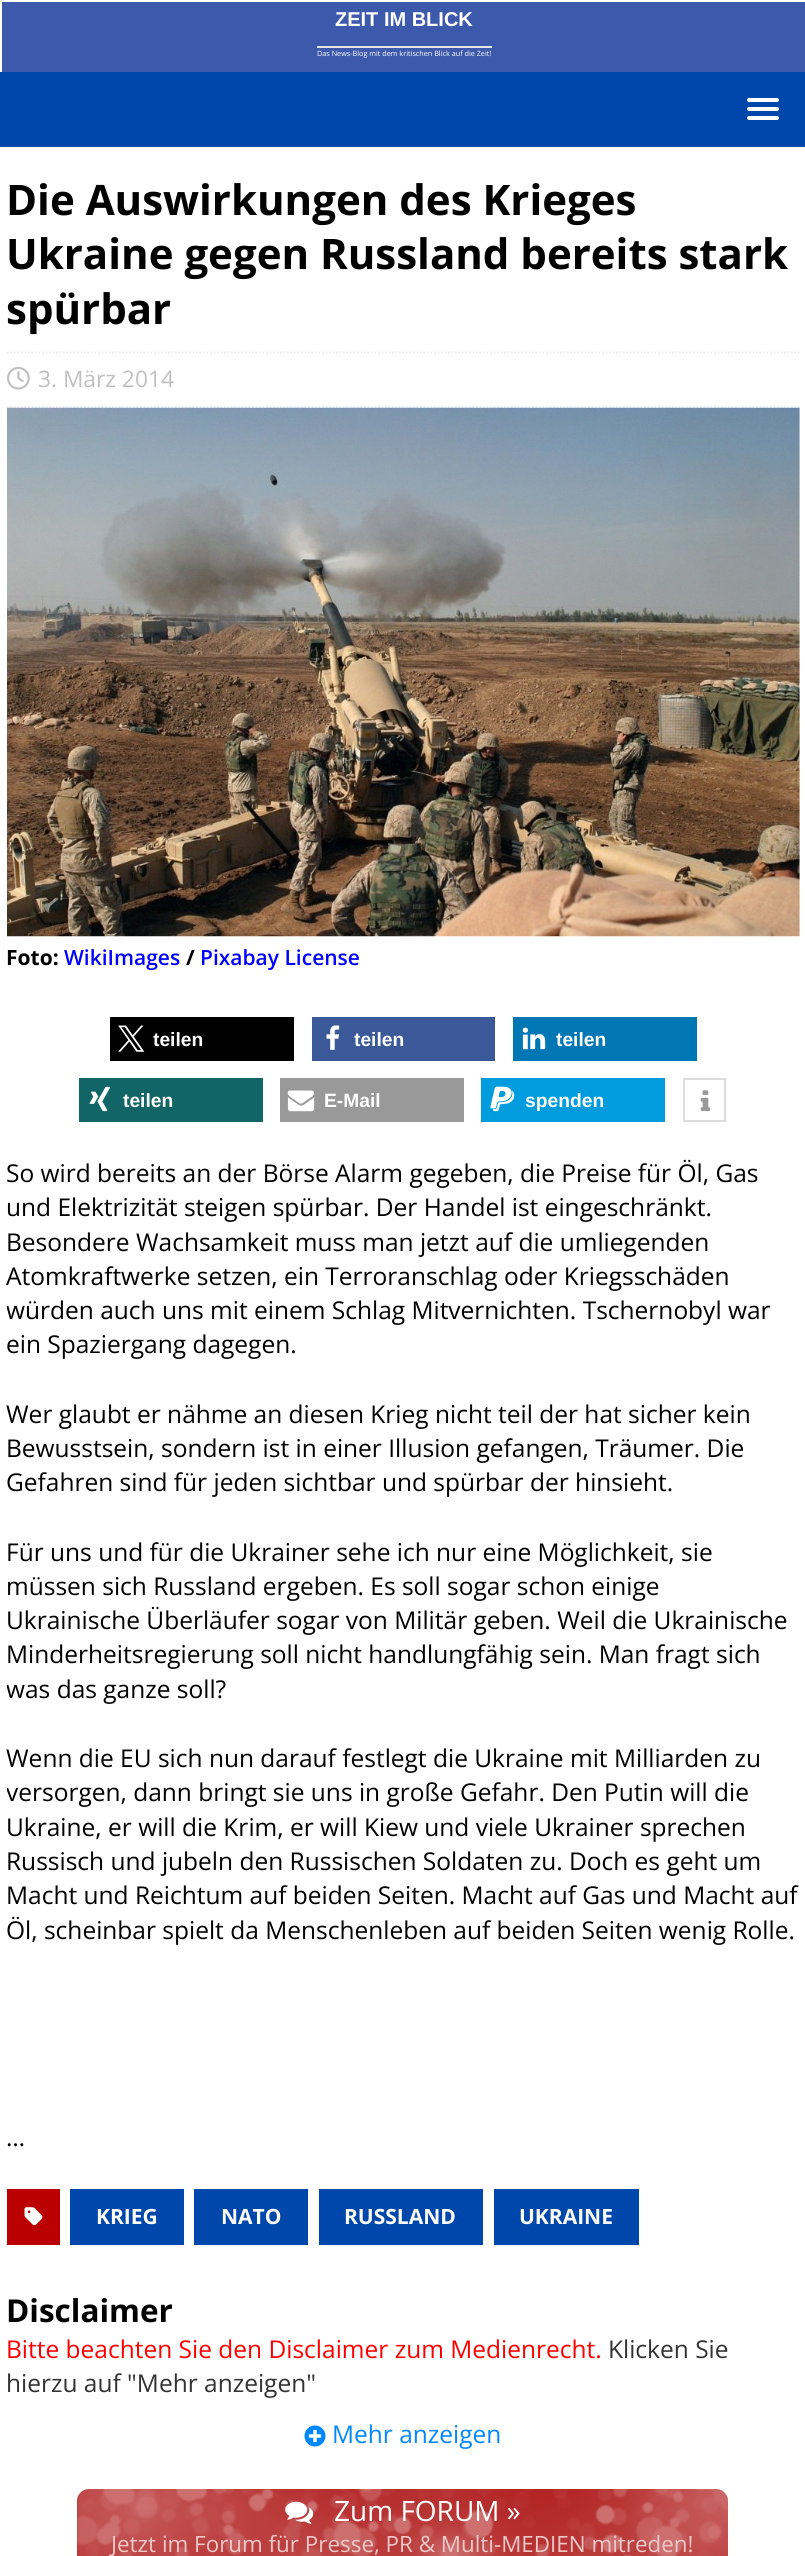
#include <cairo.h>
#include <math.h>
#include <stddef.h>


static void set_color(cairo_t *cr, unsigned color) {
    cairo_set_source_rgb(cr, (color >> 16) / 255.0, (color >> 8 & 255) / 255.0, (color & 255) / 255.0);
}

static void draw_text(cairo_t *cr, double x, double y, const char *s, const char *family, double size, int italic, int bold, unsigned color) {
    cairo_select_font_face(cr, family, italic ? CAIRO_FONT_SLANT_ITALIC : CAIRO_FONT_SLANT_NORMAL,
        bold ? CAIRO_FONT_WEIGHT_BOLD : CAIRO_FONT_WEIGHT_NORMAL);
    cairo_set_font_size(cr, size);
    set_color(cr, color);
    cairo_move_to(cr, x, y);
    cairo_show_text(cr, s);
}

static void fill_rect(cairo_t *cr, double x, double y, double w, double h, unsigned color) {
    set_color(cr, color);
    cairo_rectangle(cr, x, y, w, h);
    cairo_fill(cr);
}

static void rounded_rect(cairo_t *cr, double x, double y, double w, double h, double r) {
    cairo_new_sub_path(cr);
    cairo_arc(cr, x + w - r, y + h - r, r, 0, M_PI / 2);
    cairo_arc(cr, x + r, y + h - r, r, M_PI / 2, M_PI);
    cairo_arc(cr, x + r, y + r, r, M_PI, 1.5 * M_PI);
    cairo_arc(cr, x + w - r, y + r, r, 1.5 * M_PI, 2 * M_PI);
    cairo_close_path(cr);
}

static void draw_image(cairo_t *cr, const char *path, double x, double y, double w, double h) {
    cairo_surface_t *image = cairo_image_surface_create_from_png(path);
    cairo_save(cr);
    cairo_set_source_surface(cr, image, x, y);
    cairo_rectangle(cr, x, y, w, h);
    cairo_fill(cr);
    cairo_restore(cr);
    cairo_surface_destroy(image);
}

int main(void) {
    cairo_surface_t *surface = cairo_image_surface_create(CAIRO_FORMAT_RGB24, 805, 2556);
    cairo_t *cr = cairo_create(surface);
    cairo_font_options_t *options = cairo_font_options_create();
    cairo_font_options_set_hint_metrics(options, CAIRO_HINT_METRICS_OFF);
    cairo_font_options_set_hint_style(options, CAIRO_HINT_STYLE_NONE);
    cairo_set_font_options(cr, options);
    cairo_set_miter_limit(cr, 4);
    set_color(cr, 0x0047AB);
    cairo_paint(cr);
    fill_rect(cr, 0, 0, 805, 2, 0xFFFFFF);
    fill_rect(cr, 0, 0, 2, 72, 0xFFFFFF);
    fill_rect(cr, 2, 2, 803, 70, 0x3D59AB);
    draw_text(cr, 335, 26, "ZEIT IM BLICK", "Liberation Sans", 20, 0, 1, 0xFFFFFF);
    fill_rect(cr, 317, 46, 175, 2, 0xE5E5E5);
    draw_text(cr, 317, 56, "Das News-Blog mit dem kritischen Blick auf die Zeit!", "Open Sans", 7.25, 0, 0, 0xFFFFFF);
    rounded_rect(cr, 747, 98, 32, 4, 2);
    cairo_fill(cr);
    rounded_rect(cr, 747, 107, 32, 4, 2);
    cairo_fill(cr);
    rounded_rect(cr, 747, 116, 32, 4, 2);
    cairo_fill(cr);
    fill_rect(cr, 0, 147, 805, 2409, 0xFFFFFF);
    draw_text(cr, 6, 215, "Die Auswirkungen des Krieges", "Open Sans", 42, 0, 1, 0x000000);
    draw_text(cr, 6, 269, "Ukraine gegen Russland bereits stark", "Open Sans", 42, 0, 1, 0x000000);
    draw_text(cr, 6, 324, "spürbar", "Open Sans", 42, 0, 1, 0x000000);
    cairo_new_path(cr);
    cairo_move_to(cr, 7, 352.5);
    cairo_line_to(cr, 800, 352.5);
    set_color(cr, 0xEBEBEB);
    cairo_set_line_width(cr, 1.8);
    cairo_set_dash(cr, (double[]){1.75, 1.75}, 2, 0);
    cairo_stroke(cr);
    cairo_new_path(cr);
    cairo_move_to(cr, 7, 407);
    cairo_line_to(cr, 800, 407);
    cairo_stroke(cr);
    draw_image(cr, "assets/img1.png", 7, 366, 23, 24);
    draw_text(cr, 38, 387, "3. März 2014", "Open Sans", 22.75, 0, 0, 0xC0C0C0);
    draw_image(cr, "assets/img2.png", 7, 407, 793, 530);
    draw_text(cr, 6, 965, "Foto:", "Open Sans", 21, 0, 1, 0x000000);
    draw_text(cr, 64, 965, "WikiImages", "Open Sans SemiBold", 21, 0, 0, 0x0000FF);
    draw_text(cr, 186, 965, "/", "Open Sans", 21, 0, 1, 0x000000);
    draw_text(cr, 200, 965, "Pixabay License", "Open Sans SemiBold", 21, 0, 0, 0x0000FF);
    fill_rect(cr, 110, 1017, 184, 44, 0x000000);
    draw_image(cr, "assets/img3.png", 118, 1025, 27, 27);
    draw_text(cr, 153, 1046, "teilen", "Liberation Sans", 19.25, 0, 1, 0xFFFFFF);
    fill_rect(cr, 312, 1017, 183, 44, 0x3B5998);
    draw_image(cr, "assets/img4.png", 326, 1025, 14, 25);
    draw_text(cr, 354, 1046, "teilen", "Liberation Sans", 19.25, 0, 1, 0xFFFFFF);
    fill_rect(cr, 513, 1017, 184, 44, 0x0077B5);
    draw_image(cr, "assets/img5.png", 522, 1027, 24, 23);
    draw_text(cr, 556, 1046, "teilen", "Liberation Sans", 19.25, 0, 1, 0xFFFFFF);
    fill_rect(cr, 79, 1078, 184, 44, 0x126567);
    draw_image(cr, "assets/img6.png", 89, 1086, 22, 26);
    draw_text(cr, 123, 1107, "teilen", "Liberation Sans", 19.25, 0, 1, 0xFFFFFF);
    fill_rect(cr, 280, 1078, 184, 44, 0x999999);
    draw_image(cr, "assets/img7.png", 287, 1090, 28, 22);
    draw_text(cr, 324, 1107, "E-Mail", "Liberation Sans", 19.25, 0, 1, 0xFFFFFF);
    fill_rect(cr, 481, 1078, 184, 44, 0x009CDE);
    draw_image(cr, "assets/img8.png", 490, 1086, 25, 26);
    draw_text(cr, 525, 1107, "spenden", "Liberation Sans", 19.25, 0, 1, 0xFFFFFF);
    cairo_rectangle(cr, 684, 1079, 41, 42);
    set_color(cr, 0xDDDDDD);
    cairo_set_line_width(cr, 2);
    cairo_set_dash(cr, NULL, 0, 0);
    cairo_stroke(cr);
    draw_image(cr, "assets/img9.png", 700, 1090, 11, 22);
    draw_text(cr, 6, 1182, "So wird bereits an der Börse Alarm gegeben, die Preise für Öl, Gas", "Open Sans", 24.5, 0, 0, 0x000000);
    draw_text(cr, 6, 1216, "und Elektrizität steigen spürbar. Der Handel ist eingeschränkt.", "Open Sans", 24.5, 0, 0, 0x000000);
    draw_text(cr, 6, 1251, "Besondere Wachsamkeit muss man jetzt auf die umliegenden", "Open Sans", 24.5, 0, 0, 0x000000);
    draw_text(cr, 6, 1285, "Atomkraftwerke setzen, ein Terroranschlag oder Kriegsschäden", "Open Sans", 24.5, 0, 0, 0x000000);
    cairo_save(cr);
    cairo_rectangle(cr, 7, 154, 793, 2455);
    cairo_clip(cr);
    draw_text(cr, 6, 1319, "würden auch uns mit einem Schlag Mitvernichten. Tschernobyl war", "Open Sans", 24.5, 0, 0, 0x000000);
    cairo_restore(cr);
    draw_text(cr, 6, 1353, "ein Spaziergang dagegen.", "Open Sans", 24.5, 0, 0, 0x000000);
    draw_text(cr, 6, 1423, "Wer glaubt er nähme an diesen Krieg nicht teil der hat sicher kein", "Open Sans", 24.5, 0, 0, 0x000000);
    draw_text(cr, 6, 1457, "Bewusstsein, sondern ist in einer Illusion gefangen, Träumer. Die", "Open Sans", 24.5, 0, 0, 0x000000);
    draw_text(cr, 6, 1491, "Gefahren sind für jeden sichtbar und spürbar der hinsieht.", "Open Sans", 24.5, 0, 0, 0x000000);
    draw_text(cr, 6, 1561, "Für uns und für die Ukrainer sehe ich nur eine Möglichkeit, sie", "Open Sans", 24.5, 0, 0, 0x000000);
    draw_text(cr, 6, 1595, "müssen sich Russland ergeben. Es soll sogar schon einige", "Open Sans", 24.5, 0, 0, 0x000000);
    draw_text(cr, 6, 1629, "Ukrainische Überläufer sogar von Militär geben. Weil die Ukrainische", "Open Sans", 24.5, 0, 0, 0x000000);
    draw_text(cr, 6, 1663, "Minderheitsregierung soll nicht handlungfähig sein. Man fragt sich", "Open Sans", 24.5, 0, 0, 0x000000);
    cairo_save(cr);
    cairo_rectangle(cr, 7, 154, 793, 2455);
    cairo_clip(cr);
    draw_text(cr, 6, 1698, "was das ganze soll?", "Open Sans", 24.5, 0, 0, 0x000000);
    cairo_restore(cr);
    draw_text(cr, 6, 1767, "Wenn die EU sich nun darauf festlegt die Ukraine mit Milliarden zu", "Open Sans", 24.5, 0, 0, 0x000000);
    cairo_save(cr);
    cairo_rectangle(cr, 7, 154, 793, 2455);
    cairo_clip(cr);
    draw_text(cr, 6, 1801, "versorgen, dann bringt sie uns in große Gefahr. Den Putin will die", "Open Sans", 24.5, 0, 0, 0x000000);
    cairo_restore(cr);
    draw_text(cr, 6, 1836, "Ukraine, er will die Krim, er will Kiew und viele Ukrainer sprechen", "Open Sans", 24.5, 0, 0, 0x000000);
    draw_text(cr, 6, 1870, "Russisch und jubeln den Russischen Soldaten zu. Doch es geht um", "Open Sans", 24.5, 0, 0, 0x000000);
    draw_text(cr, 6, 1904, "Macht und Reichtum auf beiden Seiten. Macht auf Gas und Macht auf", "Open Sans", 24.5, 0, 0, 0x000000);
    draw_text(cr, 6, 1939, "Öl, scheinbar spielt da Menschenleben auf beiden Seiten wenig Rolle.", "Open Sans", 24.5, 0, 0, 0x000000);
    draw_text(cr, 6, 2146, "…", "Open Sans", 24.5, 0, 0, 0x000000);
    fill_rect(cr, 7, 2189, 53, 56, 0xBA0000);
    draw_image(cr, "assets/img10.png", 24, 2207, 19, 19);
    fill_rect(cr, 70, 2189, 114, 56, 0x0047AB);
    draw_text(cr, 96, 2224, "KRIEG", "Open Sans", 21, 0, 1, 0xFFFFFF);
    fill_rect(cr, 194, 2189, 114, 56, 0x0047AB);
    draw_text(cr, 221, 2224, "NATO", "Open Sans", 21, 0, 1, 0xFFFFFF);
    fill_rect(cr, 319, 2189, 164, 56, 0x0047AB);
    draw_text(cr, 344, 2224, "RUSSLAND", "Open Sans", 21, 0, 1, 0xFFFFFF);
    fill_rect(cr, 494, 2189, 145, 56, 0x0047AB);
    draw_text(cr, 519, 2224, "UKRAINE", "Open Sans", 21, 0, 1, 0xFFFFFF);
    draw_text(cr, 6, 2322, "Disclaimer", "Open Sans", 31.5, 0, 1, 0x000000);
    draw_text(cr, 6, 2358, "Bitte beachten Sie den Disclaimer zum Medienrecht.", "Open Sans", 24.5, 0, 0, 0xFF0000);
    draw_text(cr, 608, 2358, "Klicken Sie", "Open Sans", 24.5, 0, 0, 0x333333);
    draw_text(cr, 6, 2392, "hierzu auf \"Mehr anzeigen\"", "Open Sans", 24.5, 0, 0, 0x333333);
    draw_image(cr, "assets/img11.png", 304, 2425, 22, 22);
    draw_text(cr, 332, 2443, "Mehr anzeigen", "Open Sans", 24.5, 0, 0, 0x0088FF);
    set_color(cr, 0xB22222);
    rounded_rect(cr, 77, 2489, 651, 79, 12);
    cairo_fill(cr);
    draw_image(cr, "assets/img12.png", 77, 2489, 651, 67);
    draw_image(cr, "assets/img13.png", 285, 2501, 29, 23);
    draw_text(cr, 334, 2521, "Zum FORUM »", "Open Sans", 28, 0, 0, 0xFFFFFF);
    draw_text(cr, 111, 2552, "Jetzt im Forum für Presse, PR & Multi-MEDIEN mitreden!", "Open Sans", 22.4, 0, 0, 0xECC9C9);
    cairo_surface_write_to_png(surface, "output.png");
    cairo_font_options_destroy(options);
    cairo_destroy(cr);
    cairo_surface_destroy(surface);
    return 0;
}
